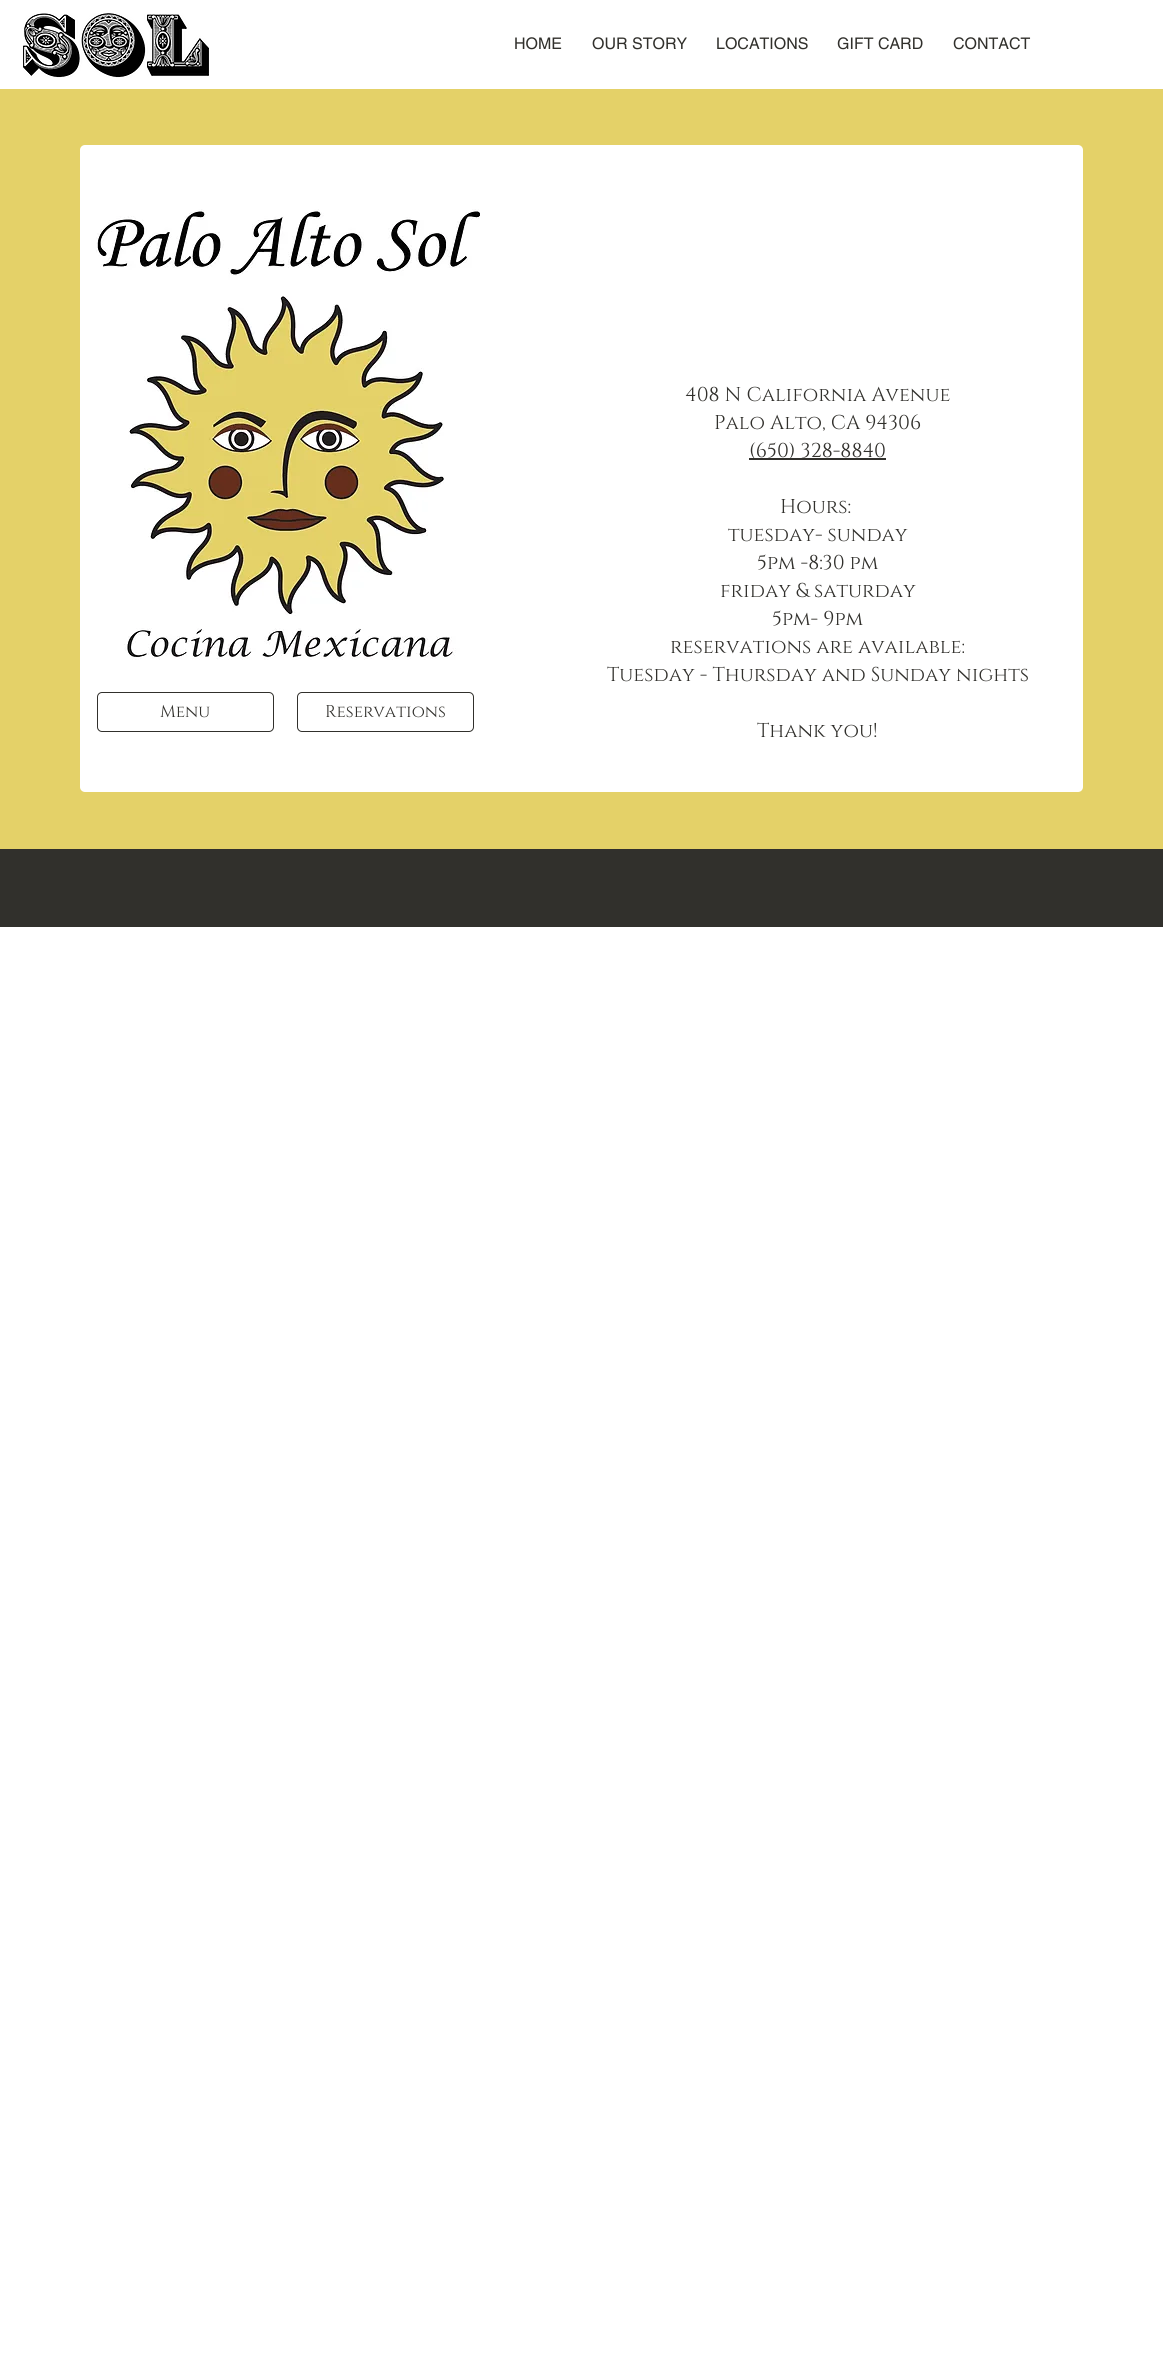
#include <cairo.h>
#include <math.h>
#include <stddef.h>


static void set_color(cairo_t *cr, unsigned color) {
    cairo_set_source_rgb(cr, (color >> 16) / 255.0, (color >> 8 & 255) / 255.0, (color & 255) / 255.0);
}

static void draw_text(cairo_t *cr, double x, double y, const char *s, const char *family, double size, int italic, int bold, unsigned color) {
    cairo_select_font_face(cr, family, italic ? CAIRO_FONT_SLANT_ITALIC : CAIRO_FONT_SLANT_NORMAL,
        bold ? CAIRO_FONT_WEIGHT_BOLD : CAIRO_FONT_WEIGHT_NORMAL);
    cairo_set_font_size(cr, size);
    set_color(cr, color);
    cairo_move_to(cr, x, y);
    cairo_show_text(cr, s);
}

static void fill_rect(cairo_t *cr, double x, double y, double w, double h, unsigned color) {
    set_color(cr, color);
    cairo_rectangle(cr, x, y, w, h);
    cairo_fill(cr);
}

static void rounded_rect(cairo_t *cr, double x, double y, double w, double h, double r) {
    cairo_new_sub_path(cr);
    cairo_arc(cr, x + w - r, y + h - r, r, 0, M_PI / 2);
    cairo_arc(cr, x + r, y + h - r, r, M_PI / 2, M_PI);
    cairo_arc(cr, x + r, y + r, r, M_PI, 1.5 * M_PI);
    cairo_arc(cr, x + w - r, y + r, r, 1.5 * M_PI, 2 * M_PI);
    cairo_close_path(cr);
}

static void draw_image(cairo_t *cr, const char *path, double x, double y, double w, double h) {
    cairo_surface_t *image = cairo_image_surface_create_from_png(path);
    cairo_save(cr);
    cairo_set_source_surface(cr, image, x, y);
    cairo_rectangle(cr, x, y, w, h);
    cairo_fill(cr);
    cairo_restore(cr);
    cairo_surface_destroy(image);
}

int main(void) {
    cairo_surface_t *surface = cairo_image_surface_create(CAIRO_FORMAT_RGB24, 1163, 2360);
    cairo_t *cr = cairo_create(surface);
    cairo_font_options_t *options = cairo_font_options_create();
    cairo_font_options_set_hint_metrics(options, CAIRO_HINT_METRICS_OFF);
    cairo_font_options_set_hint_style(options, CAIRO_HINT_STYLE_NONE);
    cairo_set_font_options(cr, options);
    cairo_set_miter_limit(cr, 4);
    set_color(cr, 0xFFFFFF);
    cairo_paint(cr);
    draw_image(cr, "assets/img1.png", 23, 13, 186, 65);
    draw_text(cr, 514, 49, "HOME", "helvetica", 16, 0, 0, 0x31302C);
    draw_text(cr, 592, 49, "OUR STORY", "helvetica", 16, 0, 0, 0x31302C);
    draw_text(cr, 716, 49, "LOCATIONS", "helvetica", 16, 0, 0, 0x31302C);
    draw_text(cr, 837, 49, "GIFT CARD", "helvetica", 16, 0, 0, 0x31302C);
    draw_text(cr, 953, 49, "CONTACT", "helvetica", 16, 0, 0, 0x31302C);
    fill_rect(cr, 0, 89, 1163, 760, 0xE4D168);
    set_color(cr, 0xFFFFFF);
    rounded_rect(cr, 80, 145, 1003, 647, 5);
    cairo_fill(cr);
    draw_image(cr, "assets/img2.png", 96, 209, 384, 451);
    draw_text(cr, 685, 401, "408 N California Avenue", "Cinzel", 20, 0, 0, 0x31302C);
    draw_text(cr, 714, 429, "Palo Alto, CA 94306", "Cinzel", 20, 0, 0, 0x31302C);
    fill_rect(cr, 749, 458, 137, 2, 0x31302C);
    draw_text(cr, 749, 457, "(650) 328-8840", "Cinzel", 20, 0, 0, 0x31302C);
    draw_text(cr, 780, 513, "Hours:", "Cinzel", 20, 0, 0, 0x31302C);
    draw_text(cr, 728, 541, "tuesday- sunday", "Cinzel", 20, 0, 0, 0x31302C);
    draw_text(cr, 757, 569, "5pm -8:30 pm", "Cinzel", 20, 0, 0, 0x31302C);
    draw_text(cr, 720, 597, "friday & saturday", "Cinzel", 20, 0, 0, 0x31302C);
    draw_text(cr, 772, 625, "5pm- 9pm", "Cinzel", 20, 0, 0, 0x31302C);
    rounded_rect(cr, 97.5, 692.5, 176, 39, 4.5);
    cairo_set_line_width(cr, 1);
    cairo_stroke(cr);
    draw_text(cr, 160, 717, "Menu", "Cinzel", 17, 0, 0, 0x31302C);
    rounded_rect(cr, 297.5, 692.5, 176, 39, 4.5);
    cairo_stroke(cr);
    draw_text(cr, 325, 717, "Reservations", "Cinzel", 17, 0, 0, 0x31302C);
    draw_text(cr, 670, 653, "reservations are available:", "Cinzel", 20, 0, 0, 0x31302C);
    draw_text(cr, 607, 681, "Tuesday - Thursday and Sunday nights", "Cinzel", 20, 0, 0, 0x31302C);
    draw_text(cr, 757, 737, "Thank you!", "Cinzel", 20, 0, 0, 0x31302C);
    fill_rect(cr, 0, 849, 1163, 78, 0x31302C);
    cairo_surface_write_to_png(surface, "output.png");
    cairo_font_options_destroy(options);
    cairo_destroy(cr);
    cairo_surface_destroy(surface);
    return 0;
}
